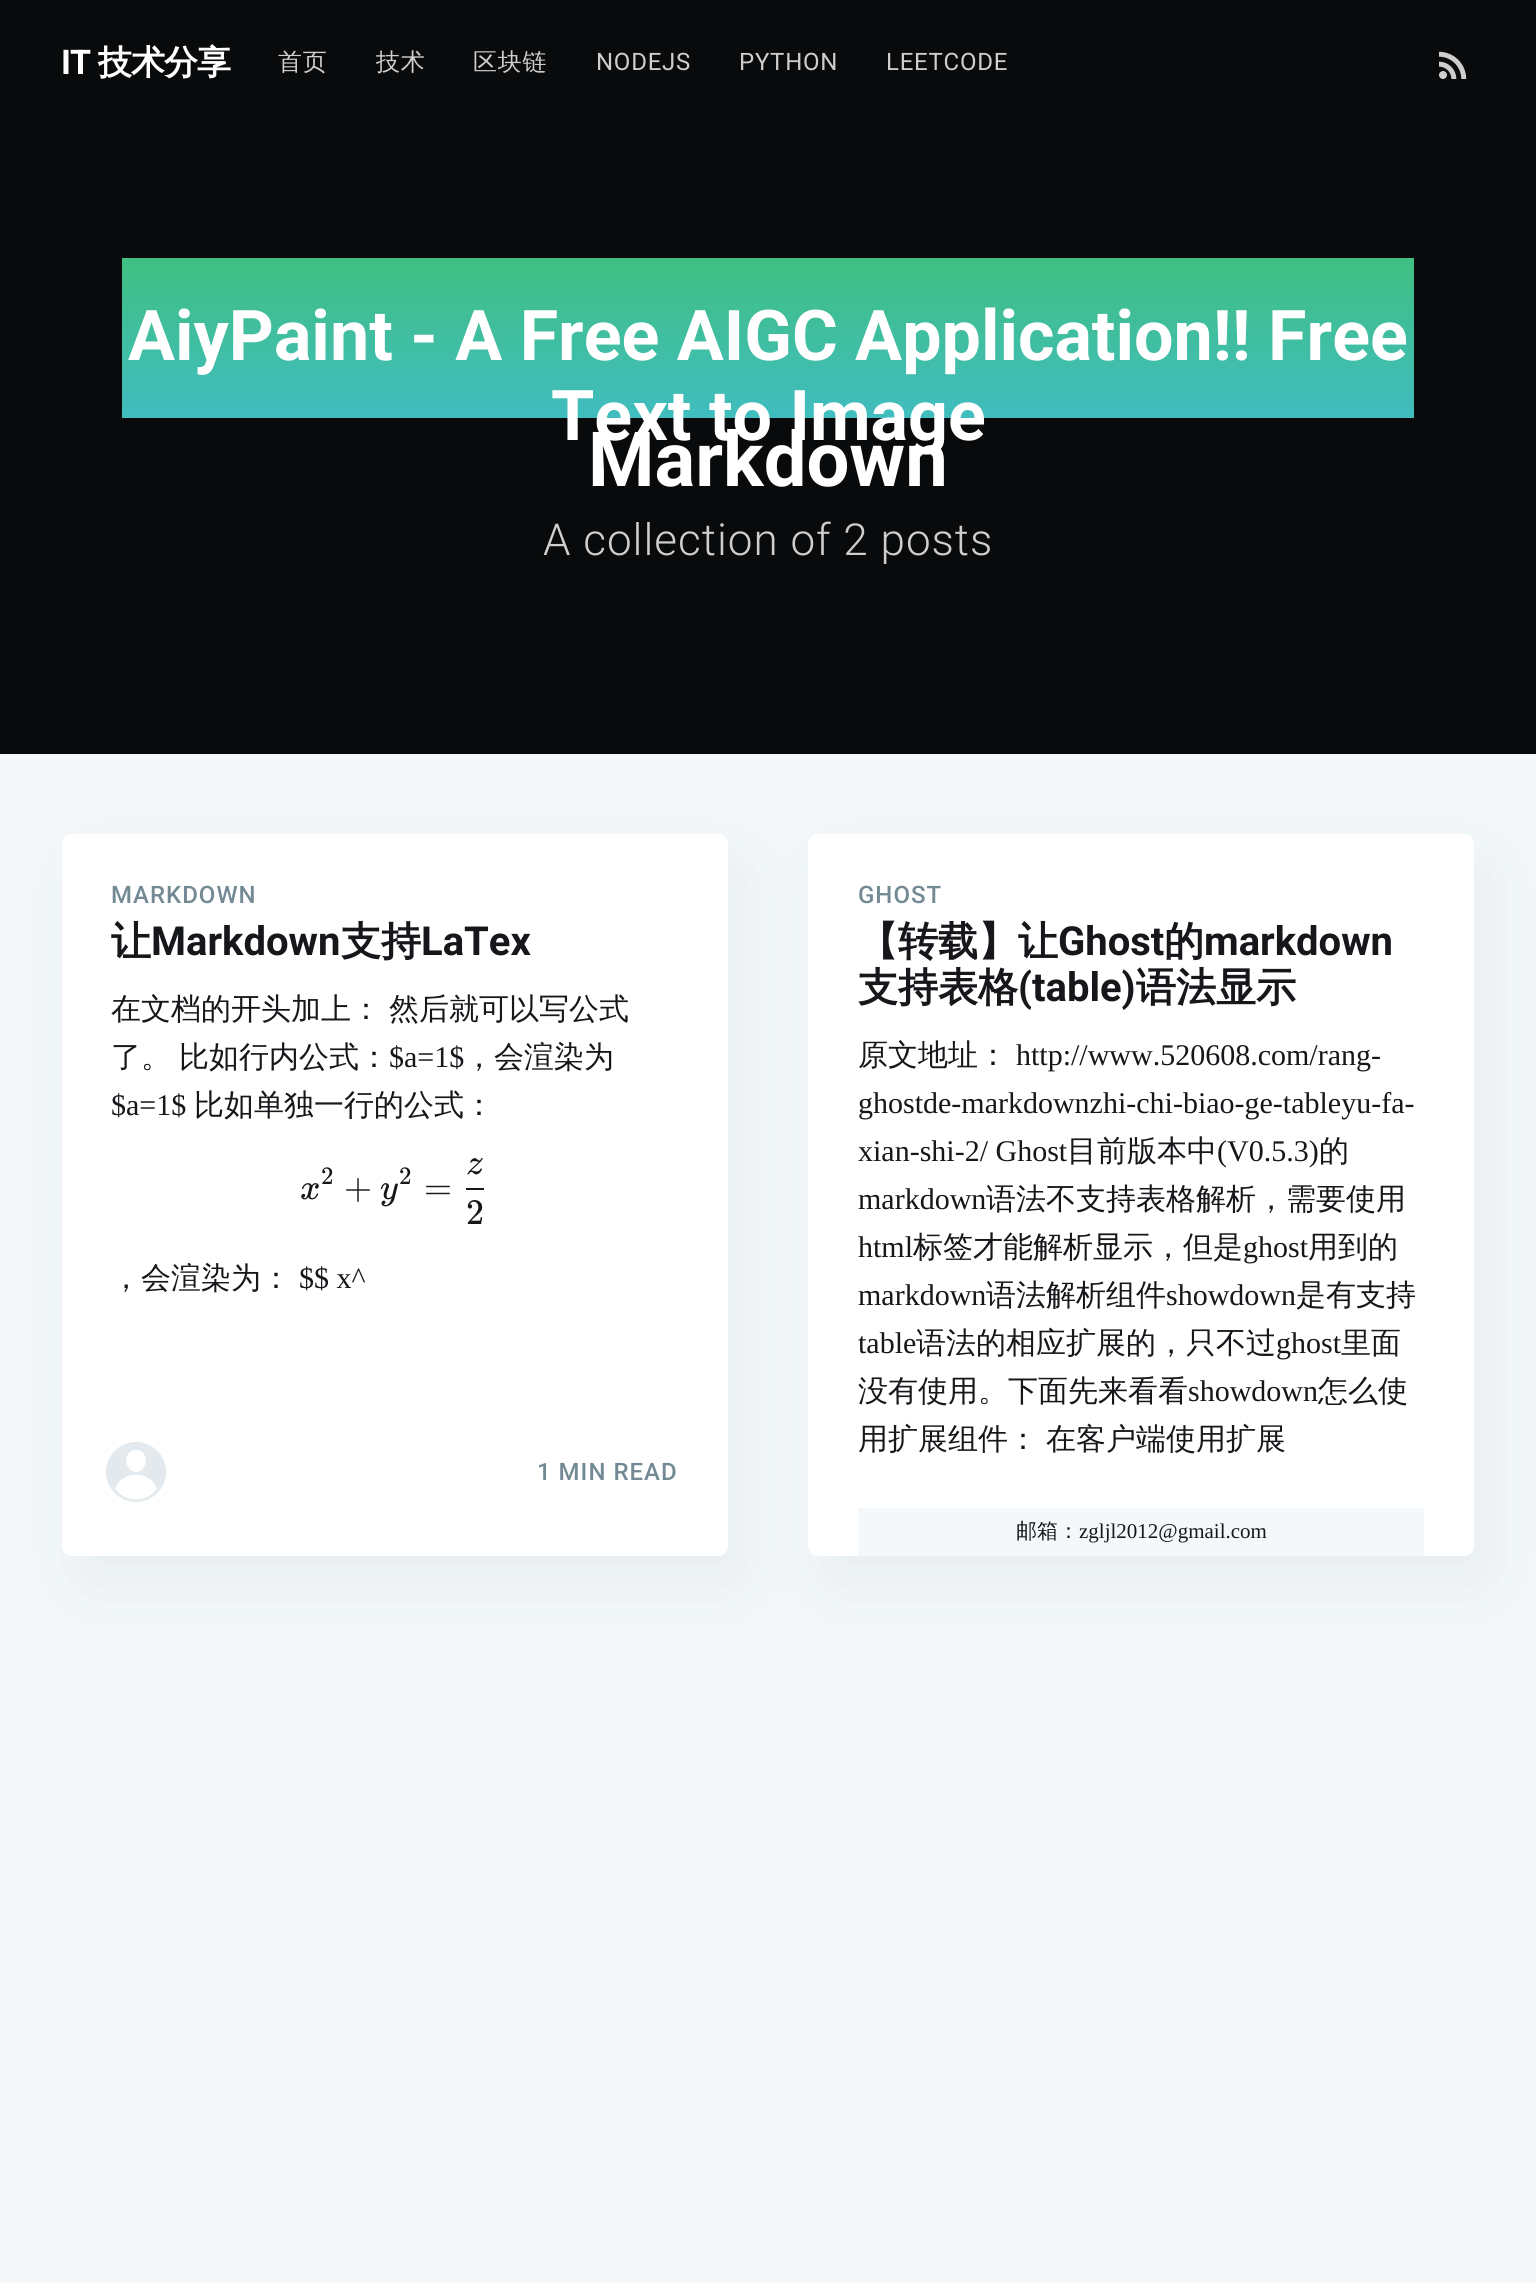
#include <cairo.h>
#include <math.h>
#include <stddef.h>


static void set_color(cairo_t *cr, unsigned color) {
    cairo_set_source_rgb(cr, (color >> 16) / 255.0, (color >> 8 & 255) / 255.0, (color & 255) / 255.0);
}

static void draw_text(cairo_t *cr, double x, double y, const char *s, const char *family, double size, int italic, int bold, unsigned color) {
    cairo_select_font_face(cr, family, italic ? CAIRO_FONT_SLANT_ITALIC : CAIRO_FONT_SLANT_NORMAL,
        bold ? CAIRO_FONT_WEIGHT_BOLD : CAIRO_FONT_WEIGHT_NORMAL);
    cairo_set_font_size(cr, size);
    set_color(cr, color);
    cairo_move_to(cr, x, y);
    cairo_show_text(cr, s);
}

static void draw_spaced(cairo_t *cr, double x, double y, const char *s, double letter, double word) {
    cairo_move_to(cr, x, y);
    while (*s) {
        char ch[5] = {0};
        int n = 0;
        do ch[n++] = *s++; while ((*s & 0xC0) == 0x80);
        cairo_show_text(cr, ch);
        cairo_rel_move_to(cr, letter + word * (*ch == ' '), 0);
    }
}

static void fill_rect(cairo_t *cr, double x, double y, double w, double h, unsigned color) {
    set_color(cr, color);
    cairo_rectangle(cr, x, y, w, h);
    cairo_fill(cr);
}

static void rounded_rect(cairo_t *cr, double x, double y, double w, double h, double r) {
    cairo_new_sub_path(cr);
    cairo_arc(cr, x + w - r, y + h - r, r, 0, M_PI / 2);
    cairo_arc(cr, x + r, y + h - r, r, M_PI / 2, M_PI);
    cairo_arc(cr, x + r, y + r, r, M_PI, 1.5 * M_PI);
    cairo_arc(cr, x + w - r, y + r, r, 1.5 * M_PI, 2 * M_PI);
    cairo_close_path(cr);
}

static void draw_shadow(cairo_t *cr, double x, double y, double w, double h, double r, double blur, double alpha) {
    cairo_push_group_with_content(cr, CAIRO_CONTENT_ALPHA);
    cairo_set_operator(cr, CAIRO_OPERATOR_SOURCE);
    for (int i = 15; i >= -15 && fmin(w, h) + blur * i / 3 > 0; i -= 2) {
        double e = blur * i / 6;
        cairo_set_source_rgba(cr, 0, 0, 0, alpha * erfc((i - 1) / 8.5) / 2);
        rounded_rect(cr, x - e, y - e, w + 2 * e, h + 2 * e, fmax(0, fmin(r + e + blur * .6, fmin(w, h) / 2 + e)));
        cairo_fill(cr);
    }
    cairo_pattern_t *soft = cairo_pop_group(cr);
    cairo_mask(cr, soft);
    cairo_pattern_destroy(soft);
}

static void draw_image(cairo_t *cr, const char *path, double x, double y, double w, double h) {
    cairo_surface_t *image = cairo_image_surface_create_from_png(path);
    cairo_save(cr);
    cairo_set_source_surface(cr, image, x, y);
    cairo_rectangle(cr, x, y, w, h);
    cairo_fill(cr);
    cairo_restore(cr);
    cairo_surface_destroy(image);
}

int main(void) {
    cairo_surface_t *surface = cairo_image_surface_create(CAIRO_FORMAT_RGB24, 1536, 2283);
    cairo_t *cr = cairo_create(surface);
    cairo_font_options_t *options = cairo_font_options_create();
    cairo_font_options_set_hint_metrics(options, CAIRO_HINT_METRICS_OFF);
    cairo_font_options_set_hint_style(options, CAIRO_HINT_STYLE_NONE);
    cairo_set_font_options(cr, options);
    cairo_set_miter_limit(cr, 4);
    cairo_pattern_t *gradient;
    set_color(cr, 0xF4F8FB);
    cairo_paint(cr);
    fill_rect(cr, 0, 0, 1536, 754, 0x090A0B);
    cairo_select_font_face(cr, "Roboto", CAIRO_FONT_SLANT_NORMAL, CAIRO_FONT_WEIGHT_BOLD);
    cairo_set_font_size(cr, 34);
    set_color(cr, 0xFFFFFF);
    draw_spaced(cr, 61, 74, "IT", -1, 0);
    cairo_select_font_face(cr, "WenQuanYi Zen Hei", CAIRO_FONT_SLANT_NORMAL, CAIRO_FONT_WEIGHT_BOLD);
    draw_spaced(cr, 98, 74, "技术分享", -1, 0);
    cairo_select_font_face(cr, "WenQuanYi Zen Hei Medium", CAIRO_FONT_SLANT_NORMAL, CAIRO_FONT_WEIGHT_NORMAL);
    cairo_set_font_size(cr, 24);
    set_color(cr, 0xCECECE);
    draw_spaced(cr, 278, 70, "首页", 0.75, 0);
    draw_spaced(cr, 376, 70, "技术", 0.75, 0);
    draw_spaced(cr, 473, 70, "区块链", 0.75, 0);
    cairo_select_font_face(cr, "Roboto", CAIRO_FONT_SLANT_NORMAL, CAIRO_FONT_WEIGHT_NORMAL);
    draw_spaced(cr, 596, 70, "NODEJS", 0.75, 0);
    draw_spaced(cr, 739, 70, "PYTHON", 0.75, 0);
    draw_spaced(cr, 886, 70, "LEETCODE", 0.75, 0);
    draw_image(cr, "assets/img1.png", 1439, 51, 28, 28);
    gradient = cairo_pattern_create_linear(768, 258, 768, 418);
    cairo_pattern_add_color_stop_rgba(gradient, 0, 0.251, 0.749, 0.51, 1);
    cairo_pattern_add_color_stop_rgba(gradient, 1, 0.251, 0.741, 0.749, 1);
    cairo_set_source(cr, gradient);
    cairo_pattern_destroy(gradient);
    cairo_rectangle(cr, 122, 258, 1292, 160);
    cairo_fill(cr);
    draw_text(cr, 128, 360, "AiyPaint - A Free AIGC Application!! Free", "Roboto", 70, 0, 1, 0xFFFFFF);
    draw_text(cr, 551, 440, "Text to Image", "Roboto", 70, 0, 1, 0xFFFFFF);
    draw_text(cr, 588, 486, "Markdown", "Roboto", 76, 0, 1, 0xFFFFFF);
    cairo_select_font_face(cr, "Roboto Light", CAIRO_FONT_SLANT_NORMAL, CAIRO_FONT_WEIGHT_NORMAL);
    cairo_set_font_size(cr, 44);
    set_color(cr, 0xCECECE);
    draw_spaced(cr, 543, 555, "A collection of 2 posts", 1, 0);
    set_color(cr, 0x272C31);
    draw_shadow(cr, 78, 862, 666, 722, 10, 38, 0.06);
    set_color(cr, 0xFFFFFF);
    rounded_rect(cr, 62, 834, 666, 722, 10);
    cairo_fill(cr);
    cairo_select_font_face(cr, "Roboto Medium", CAIRO_FONT_SLANT_NORMAL, CAIRO_FONT_WEIGHT_NORMAL);
    cairo_set_font_size(cr, 24);
    set_color(cr, 0x738A94);
    draw_spaced(cr, 111, 903, "MARKDOWN", 1, 0);
    draw_text(cr, 111, 955, "让", "WenQuanYi Zen Hei", 40, 0, 1, 0x15171A);
    draw_text(cr, 151, 955, "Markdown", "Roboto", 40, 0, 1, 0x15171A);
    draw_text(cr, 341, 955, "支持", "WenQuanYi Zen Hei", 40, 0, 1, 0x15171A);
    draw_text(cr, 421, 955, "LaTex", "Roboto", 40, 0, 1, 0x15171A);
    draw_text(cr, 111, 1019, "在文档的开头加上：", "WenQuanYi Zen Hei Medium", 30, 0, 0, 0x15171A);
    draw_text(cr, 389, 1019, "然后就可以写公式", "WenQuanYi Zen Hei Medium", 30, 0, 0, 0x15171A);
    draw_text(cr, 111, 1067, "了。", "WenQuanYi Zen Hei Medium", 30, 0, 0, 0x15171A);
    draw_text(cr, 179, 1067, "比如行内公式：", "WenQuanYi Zen Hei Medium", 30, 0, 0, 0x15171A);
    draw_text(cr, 389, 1067, "$a=1$", "Liberation Serif", 30, 0, 0, 0x15171A);
    draw_text(cr, 464, 1067, "，会渲染为", "WenQuanYi Zen Hei Medium", 30, 0, 0, 0x15171A);
    draw_text(cr, 111, 1115, "$a=1$", "Liberation Serif", 30, 0, 0, 0x15171A);
    draw_text(cr, 194, 1115, "比如单独一行的公式：", "WenQuanYi Zen Hei Medium", 30, 0, 0, 0x15171A);
    draw_text(cr, 321, 1184, "2", "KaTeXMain", 25, 0, 0, 0x15171A);
    draw_text(cr, 300, 1199, "x", "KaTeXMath", 36, 1, 0, 0x15171A);
    draw_text(cr, 344, 1199, "+", "KaTeXMain", 36, 0, 0, 0x15171A);
    draw_text(cr, 399, 1184, "2", "KaTeXMain", 25, 0, 0, 0x15171A);
    draw_text(cr, 380, 1199, "y", "KaTeXMath", 36, 1, 0, 0x15171A);
    draw_text(cr, 424, 1199, "=", "KaTeXMain", 36, 0, 0, 0x15171A);
    draw_text(cr, 466, 1174, "z", "KaTeXMath", 36, 1, 0, 0x15171A);
    fill_rect(cr, 466, 1188, 18, 2, 0x15171A);
    draw_text(cr, 466, 1224, "2", "KaTeXMain", 36, 0, 0, 0x15171A);
    draw_text(cr, 111, 1288, "，会渲染为：", "WenQuanYi Zen Hei Medium", 30, 0, 0, 0x15171A);
    draw_text(cr, 299, 1288, "$$ x^", "Liberation Serif", 30, 0, 0, 0x15171A);
    set_color(cr, 0xE3E9ED);
    cairo_new_path(cr);
    cairo_arc(cr, 136, 1472, 32, 0, 2 * M_PI);
    cairo_fill_preserve(cr);
    set_color(cr, 0xFFFFFF);
    cairo_set_line_width(cr, 4);
    cairo_stroke(cr);
    cairo_set_fill_rule(cr, CAIRO_FILL_RULE_EVEN_ODD);
    cairo_new_path(cr);
    cairo_move_to(cr, 115, 1489);
    cairo_curve_to(cr, 122, 1470, 150, 1470, 157, 1489);
    cairo_curve_to(cr, 146, 1503, 126, 1503, 115, 1489);
    cairo_close_path(cr);
    cairo_move_to(cr, 136, 1472);
    cairo_curve_to(cr, 148, 1472, 150, 1450, 136, 1450);
    cairo_curve_to(cr, 122, 1450, 124, 1472, 136, 1472);
    cairo_close_path(cr);
    cairo_fill(cr);
    cairo_select_font_face(cr, "Roboto Medium", CAIRO_FONT_SLANT_NORMAL, CAIRO_FONT_WEIGHT_NORMAL);
    cairo_set_font_size(cr, 24);
    set_color(cr, 0x738A94);
    draw_spaced(cr, 537, 1480, "1 MIN READ", 1, 0);
    set_color(cr, 0x272C31);
    draw_shadow(cr, 824, 862, 666, 722, 10, 38, 0.06);
    set_color(cr, 0xFFFFFF);
    rounded_rect(cr, 808, 834, 666, 722, 10);
    cairo_fill(cr);
    set_color(cr, 0x738A94);
    draw_spaced(cr, 858, 903, "GHOST", 1, 0);
    draw_text(cr, 858, 955, "【转载】让", "WenQuanYi Zen Hei", 40, 0, 1, 0x15171A);
    draw_text(cr, 1058, 955, "Ghost", "Roboto", 40, 0, 1, 0x15171A);
    draw_text(cr, 1164, 955, "的", "WenQuanYi Zen Hei", 40, 0, 1, 0x15171A);
    draw_text(cr, 1204, 955, "markdown", "Roboto", 40, 0, 1, 0x15171A);
    draw_text(cr, 858, 1001, "支持表格", "WenQuanYi Zen Hei", 40, 0, 1, 0x15171A);
    draw_text(cr, 1018, 1001, "(table)", "Roboto", 40, 0, 1, 0x15171A);
    draw_text(cr, 1136, 1001, "语法显示", "WenQuanYi Zen Hei", 40, 0, 1, 0x15171A);
    draw_text(cr, 858, 1065, "原文地址：", "WenQuanYi Zen Hei Medium", 30, 0, 0, 0x15171A);
    draw_text(cr, 1016, 1065, "http://www.520608.com/rang-", "Liberation Serif", 30, 0, 0, 0x15171A);
    draw_text(cr, 858, 1113, "ghostde-markdownzhi-chi-biao-ge-tableyu-fa-", "Liberation Serif", 30, 0, 0, 0x15171A);
    draw_text(cr, 858, 1161, "xian-shi-2/ Ghost", "Liberation Serif", 30, 0, 0, 0x15171A);
    draw_text(cr, 1067, 1161, "目前版本中", "WenQuanYi Zen Hei Medium", 30, 0, 0, 0x15171A);
    draw_text(cr, 1217, 1161, "(V0.5.3)", "Liberation Serif", 30, 0, 0, 0x15171A);
    draw_text(cr, 1319, 1161, "的", "WenQuanYi Zen Hei Medium", 30, 0, 0, 0x15171A);
    draw_text(cr, 858, 1209, "markdown", "Liberation Serif", 30, 0, 0, 0x15171A);
    draw_text(cr, 986, 1209, "语法不支持表格解析，需要使用", "WenQuanYi Zen Hei Medium", 30, 0, 0, 0x15171A);
    draw_text(cr, 858, 1257, "html", "Liberation Serif", 30, 0, 0, 0x15171A);
    draw_text(cr, 913, 1257, "标签才能解析显示，但是", "WenQuanYi Zen Hei Medium", 30, 0, 0, 0x15171A);
    draw_text(cr, 1243, 1257, "ghost", "Liberation Serif", 30, 0, 0, 0x15171A);
    draw_text(cr, 1308, 1257, "用到的", "WenQuanYi Zen Hei Medium", 30, 0, 0, 0x15171A);
    draw_text(cr, 858, 1305, "markdown", "Liberation Serif", 30, 0, 0, 0x15171A);
    draw_text(cr, 986, 1305, "语法解析组件", "WenQuanYi Zen Hei Medium", 30, 0, 0, 0x15171A);
    draw_text(cr, 1166, 1305, "showdown", "Liberation Serif", 30, 0, 0, 0x15171A);
    draw_text(cr, 1296, 1305, "是有支持", "WenQuanYi Zen Hei Medium", 30, 0, 0, 0x15171A);
    draw_text(cr, 858, 1353, "table", "Liberation Serif", 30, 0, 0, 0x15171A);
    draw_text(cr, 916, 1353, "语法的相应扩展的，只不过", "WenQuanYi Zen Hei Medium", 30, 0, 0, 0x15171A);
    draw_text(cr, 1276, 1353, "ghost", "Liberation Serif", 30, 0, 0, 0x15171A);
    draw_text(cr, 1341, 1353, "里面", "WenQuanYi Zen Hei Medium", 30, 0, 0, 0x15171A);
    draw_text(cr, 858, 1401, "没有使用。下面先来看看", "WenQuanYi Zen Hei Medium", 30, 0, 0, 0x15171A);
    draw_text(cr, 1188, 1401, "showdown", "Liberation Serif", 30, 0, 0, 0x15171A);
    draw_text(cr, 1318, 1401, "怎么使", "WenQuanYi Zen Hei Medium", 30, 0, 0, 0x15171A);
    draw_text(cr, 858, 1449, "用扩展组件：", "WenQuanYi Zen Hei Medium", 30, 0, 0, 0x15171A);
    draw_text(cr, 1046, 1449, "在客户端使用扩展", "WenQuanYi Zen Hei Medium", 30, 0, 0, 0x15171A);
    fill_rect(cr, 858, 1508, 566, 48, 0xF5F8FA);
    draw_text(cr, 1016, 1538, "邮箱：", "WenQuanYi Zen Hei Medium", 21, 0, 0, 0x15171A);
    draw_text(cr, 1079, 1538, "zgljl2012@gmail.com", "Liberation Serif", 21, 0, 0, 0x15171A);
    cairo_surface_write_to_png(surface, "output.png");
    cairo_font_options_destroy(options);
    cairo_destroy(cr);
    cairo_surface_destroy(surface);
    return 0;
}
